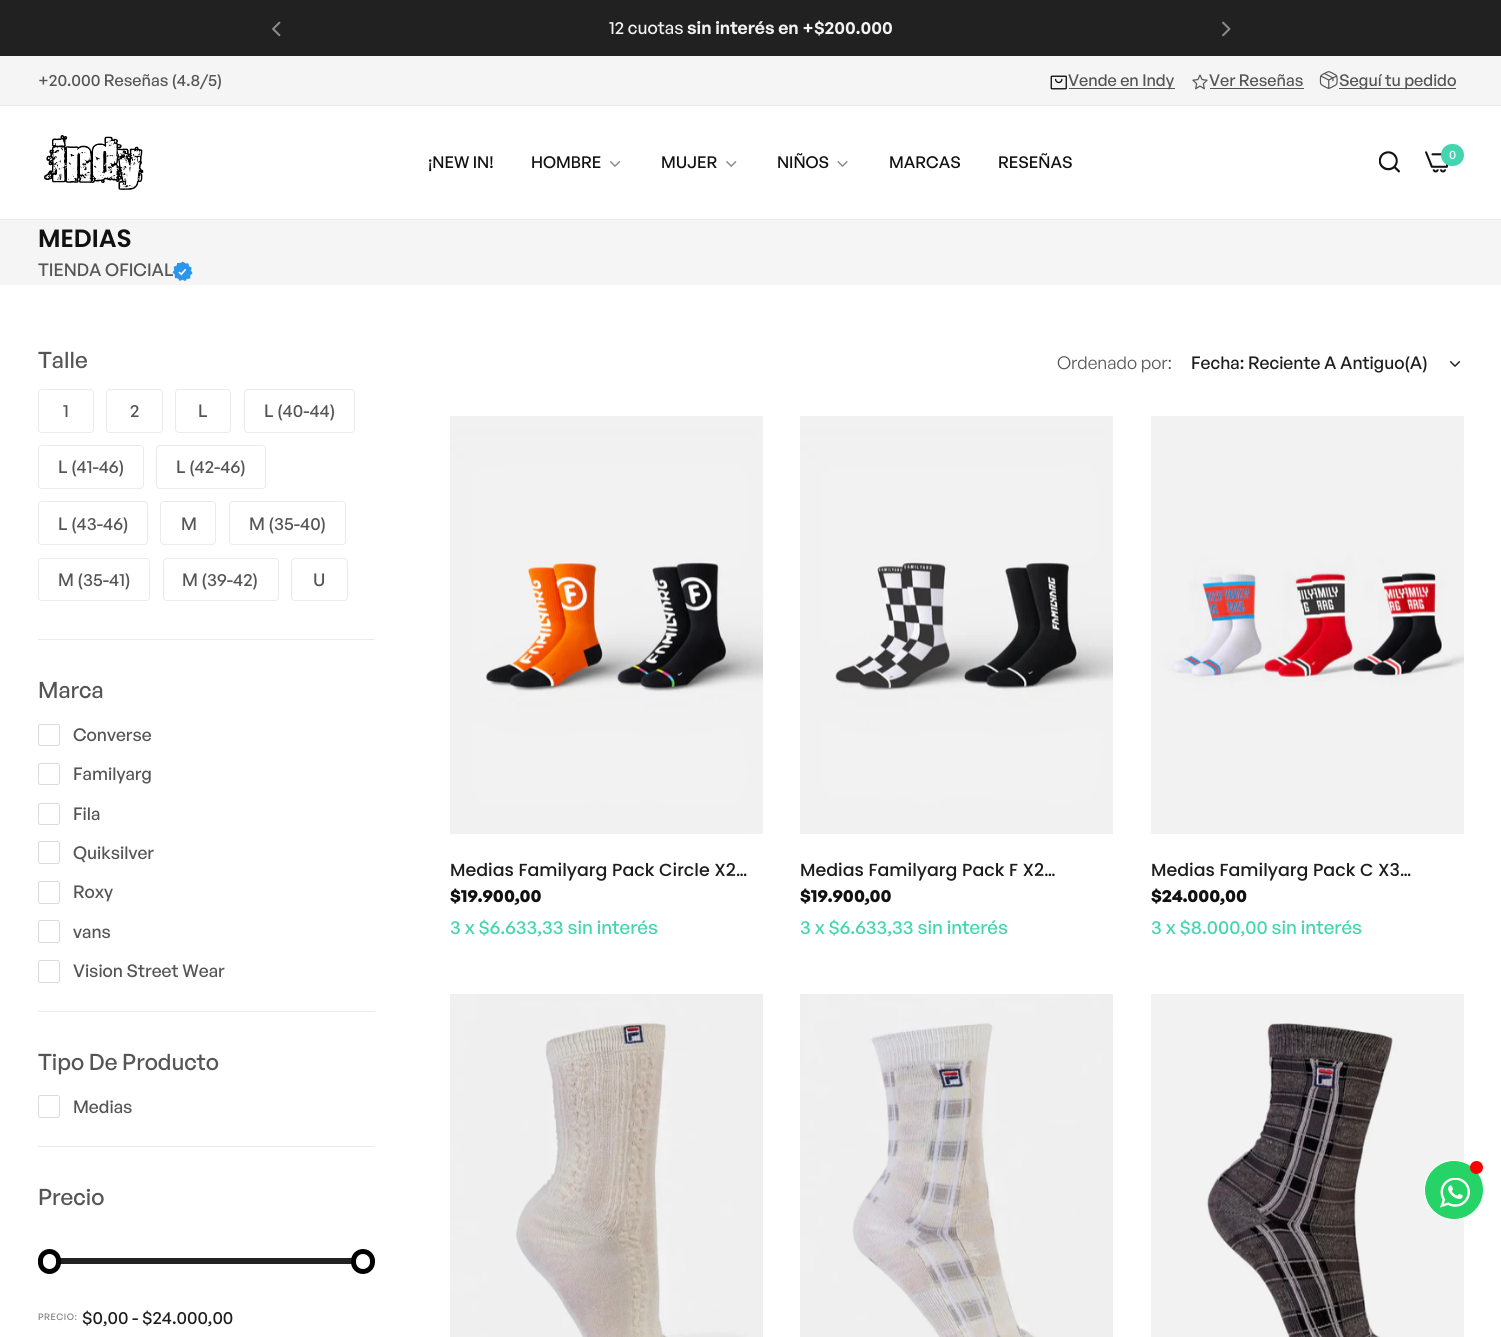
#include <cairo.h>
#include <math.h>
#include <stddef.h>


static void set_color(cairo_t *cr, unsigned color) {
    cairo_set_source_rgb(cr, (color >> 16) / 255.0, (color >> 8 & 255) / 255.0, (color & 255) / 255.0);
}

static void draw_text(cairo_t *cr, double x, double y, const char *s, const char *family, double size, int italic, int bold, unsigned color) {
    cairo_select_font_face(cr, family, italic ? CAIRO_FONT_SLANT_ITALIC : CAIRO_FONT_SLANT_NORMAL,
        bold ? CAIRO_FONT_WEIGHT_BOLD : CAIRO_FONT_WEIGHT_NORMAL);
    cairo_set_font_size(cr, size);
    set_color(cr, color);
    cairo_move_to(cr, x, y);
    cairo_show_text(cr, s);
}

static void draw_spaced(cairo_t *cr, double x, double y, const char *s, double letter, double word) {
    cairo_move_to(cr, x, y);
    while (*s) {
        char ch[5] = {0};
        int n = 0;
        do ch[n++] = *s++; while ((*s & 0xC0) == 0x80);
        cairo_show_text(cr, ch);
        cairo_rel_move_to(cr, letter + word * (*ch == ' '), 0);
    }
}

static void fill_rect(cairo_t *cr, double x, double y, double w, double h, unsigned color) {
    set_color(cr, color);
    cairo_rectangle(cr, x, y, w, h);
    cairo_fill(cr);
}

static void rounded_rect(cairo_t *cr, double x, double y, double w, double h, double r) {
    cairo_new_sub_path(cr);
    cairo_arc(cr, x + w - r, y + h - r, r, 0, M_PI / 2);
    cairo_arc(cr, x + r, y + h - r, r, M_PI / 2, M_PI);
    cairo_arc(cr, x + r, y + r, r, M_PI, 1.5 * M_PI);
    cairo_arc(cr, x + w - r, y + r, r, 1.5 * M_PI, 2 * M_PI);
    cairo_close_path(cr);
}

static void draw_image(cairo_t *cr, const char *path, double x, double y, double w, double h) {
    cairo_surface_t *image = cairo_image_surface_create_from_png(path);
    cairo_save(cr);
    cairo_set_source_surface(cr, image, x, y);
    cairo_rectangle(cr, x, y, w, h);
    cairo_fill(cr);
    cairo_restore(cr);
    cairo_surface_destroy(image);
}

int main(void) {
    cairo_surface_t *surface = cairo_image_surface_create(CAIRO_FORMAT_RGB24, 1501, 1337);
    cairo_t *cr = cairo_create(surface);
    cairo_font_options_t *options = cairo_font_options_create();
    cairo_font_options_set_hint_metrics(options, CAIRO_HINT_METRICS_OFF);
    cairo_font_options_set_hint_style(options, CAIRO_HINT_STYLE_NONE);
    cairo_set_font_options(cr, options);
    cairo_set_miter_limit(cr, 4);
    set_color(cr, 0xFFFFFF);
    cairo_paint(cr);
    fill_rect(cr, 0, 0, 1501, 56, 0x212121);
    draw_image(cr, "assets/img1.png", 272, 21, 9, 16);
    draw_text(cr, 609, 34, "12 cuotas", "General Sans Medium", 17.5, 0, 0, 0xF2F2F2);
    draw_text(cr, 687, 34, "sin interés en +$200.000", "General Sans SemiBold", 17.5, 0, 0, 0xF2F2F2);
    draw_image(cr, "assets/img2.png", 1222, 21, 9, 16);
    fill_rect(cr, 0, 219, 1501, 1, 0xEBEBEB);
    fill_rect(cr, 0, 56, 1501, 49, 0xF5F5F5);
    fill_rect(cr, 0, 105, 1501, 1, 0xEBEBEB);
    draw_text(cr, 38, 86, "+20.000 Reseñas (4.8/5)", "General Sans Medium", 16.25, 0, 0, 0x555555);
    draw_image(cr, "assets/img3.png", 1050, 75, 17, 15);
    fill_rect(cr, 1069, 88, 106, 1, 0x555555);
    draw_text(cr, 1068, 86, "Vende en Indy", "General Sans Medium", 16.25, 0, 0, 0x555555);
    draw_image(cr, "assets/img4.png", 1192, 74, 16, 16);
    draw_text(cr, 1209, 86, "Ver Reseñas", "General Sans Medium", 16.25, 0, 0, 0x555555);
    fill_rect(cr, 1210, 88, 94, 1, 0x555555);
    draw_image(cr, "assets/img5.png", 1319, 71, 19, 18);
    fill_rect(cr, 1339, 88, 117, 1, 0x555555);
    draw_text(cr, 1339, 86, "Seguí tu pedido", "General Sans Medium", 16.25, 0, 0, 0x555555);
    draw_image(cr, "assets/img6.png", 44, 135, 100, 55);
    draw_text(cr, 428, 168, "¡NEW IN!", "General Sans Medium", 16.25, 0, 0, 0x111111);
    draw_text(cr, 531, 168, "HOMBRE", "General Sans Medium", 16.25, 0, 0, 0x111111);
    draw_image(cr, "assets/img7.png", 610, 161, 10, 6);
    draw_text(cr, 661, 168, "MUJER", "General Sans Medium", 16.25, 0, 0, 0x111111);
    draw_image(cr, "assets/img8.png", 726, 161, 11, 6);
    draw_text(cr, 777, 168, "NIÑOS", "General Sans Medium", 16.25, 0, 0, 0x111111);
    draw_image(cr, "assets/img9.png", 837, 161, 11, 6);
    draw_text(cr, 889, 168, "MARCAS", "General Sans Medium", 16.25, 0, 0, 0x111111);
    draw_text(cr, 998, 168, "RESEÑAS", "General Sans Medium", 16.25, 0, 0, 0x111111);
    draw_image(cr, "assets/img10.png", 1379, 151, 21, 22);
    draw_image(cr, "assets/img11.png", 1425, 151, 24, 22);
    set_color(cr, 0x43D5B0);
    rounded_rect(cr, 1441, 144, 23, 22, 11);
    cairo_fill(cr);
    draw_text(cr, 1449, 159, "0", "General Sans Medium", 12, 0, 0, 0xFFFFFF);
    fill_rect(cr, 0, 220, 1501, 65, 0xF5F5F5);
    draw_text(cr, 38, 247, "MEDIAS", "Poppins SemiBold", 25, 0, 0, 0x111111);
    draw_text(cr, 38, 276, "TIENDA OFICIAL", "General Sans Medium", 17.5, 0, 0, 0x555555);
    draw_image(cr, "assets/img12.png", 172, 261, 21, 21);
    fill_rect(cr, 38, 639, 337, 1, 0xEBEBEB);
    draw_text(cr, 38, 368, "Talle", "General Sans Medium", 22.5, 0, 0, 0x555555);
    rounded_rect(cr, 38.5, 389.5, 55, 43, 3.5);
    set_color(cr, 0xEBEBEB);
    cairo_set_line_width(cr, 1);
    cairo_stroke(cr);
    draw_text(cr, 63, 417, "1", "General Sans Medium", 17.5, 0, 0, 0x555555);
    rounded_rect(cr, 106.5, 389.5, 56, 43, 3.5);
    set_color(cr, 0xEBEBEB);
    cairo_stroke(cr);
    draw_text(cr, 130, 417, "2", "General Sans Medium", 17.5, 0, 0, 0x555555);
    rounded_rect(cr, 175.5, 389.5, 55, 43, 3.5);
    set_color(cr, 0xEBEBEB);
    cairo_stroke(cr);
    draw_text(cr, 198, 417, "L", "General Sans Medium", 17.5, 0, 0, 0x555555);
    rounded_rect(cr, 244.5, 389.5, 110, 43, 3.5);
    set_color(cr, 0xEBEBEB);
    cairo_stroke(cr);
    draw_text(cr, 264, 417, "L (40-44)", "General Sans Medium", 17.5, 0, 0, 0x555555);
    rounded_rect(cr, 38.5, 445.5, 105, 43, 3.5);
    set_color(cr, 0xEBEBEB);
    cairo_stroke(cr);
    draw_text(cr, 58, 473, "L (41-46)", "General Sans Medium", 17.5, 0, 0, 0x555555);
    rounded_rect(cr, 156.5, 445.5, 109, 43, 3.5);
    set_color(cr, 0xEBEBEB);
    cairo_stroke(cr);
    draw_text(cr, 176, 473, "L (42-46)", "General Sans Medium", 17.5, 0, 0, 0x555555);
    rounded_rect(cr, 38.5, 501.5, 109, 43, 3.5);
    set_color(cr, 0xEBEBEB);
    cairo_stroke(cr);
    draw_text(cr, 58, 530, "L (43-46)", "General Sans Medium", 17.5, 0, 0, 0x555555);
    rounded_rect(cr, 160.5, 501.5, 55, 43, 3.5);
    set_color(cr, 0xEBEBEB);
    cairo_stroke(cr);
    draw_text(cr, 181, 530, "M", "General Sans Medium", 17.5, 0, 0, 0x555555);
    rounded_rect(cr, 229.5, 501.5, 116, 43, 3.5);
    set_color(cr, 0xEBEBEB);
    cairo_stroke(cr);
    draw_text(cr, 249, 530, "M (35-40)", "General Sans Medium", 17.5, 0, 0, 0x555555);
    rounded_rect(cr, 38.5, 558.5, 111, 42, 3.5);
    set_color(cr, 0xEBEBEB);
    cairo_stroke(cr);
    draw_text(cr, 58, 586, "M (35-41)", "General Sans Medium", 17.5, 0, 0, 0x555555);
    rounded_rect(cr, 163.5, 558.5, 115, 42, 3.5);
    set_color(cr, 0xEBEBEB);
    cairo_stroke(cr);
    draw_text(cr, 182, 586, "M (39-42)", "General Sans Medium", 17.5, 0, 0, 0x555555);
    rounded_rect(cr, 291.5, 558.5, 56, 42, 3.5);
    set_color(cr, 0xEBEBEB);
    cairo_stroke(cr);
    draw_text(cr, 313, 586, "U", "General Sans Medium", 17.5, 0, 0, 0x555555);
    fill_rect(cr, 38, 1011, 337, 1, 0xEBEBEB);
    draw_text(cr, 38, 698, "Marca", "General Sans Medium", 22.5, 0, 0, 0x555555);
    rounded_rect(cr, 38.5, 724.5, 21, 21, 2);
    set_color(cr, 0xDBDBDB);
    cairo_stroke(cr);
    draw_text(cr, 73, 741, "Converse", "General Sans Medium", 17.5, 0, 0, 0x555555);
    rounded_rect(cr, 38.5, 763.5, 21, 21, 2);
    set_color(cr, 0xDBDBDB);
    cairo_stroke(cr);
    draw_text(cr, 73, 780, "Familyarg", "General Sans Medium", 17.5, 0, 0, 0x555555);
    rounded_rect(cr, 38.5, 803.5, 21, 21, 2);
    set_color(cr, 0xDBDBDB);
    cairo_stroke(cr);
    draw_text(cr, 73, 820, "Fila", "General Sans Medium", 17.5, 0, 0, 0x555555);
    rounded_rect(cr, 38.5, 841.5, 21, 22, 2);
    set_color(cr, 0xDBDBDB);
    cairo_stroke(cr);
    draw_text(cr, 73, 859, "Quiksilver", "General Sans Medium", 17.5, 0, 0, 0x555555);
    rounded_rect(cr, 38.5, 881.5, 21, 22, 2);
    set_color(cr, 0xDBDBDB);
    cairo_stroke(cr);
    draw_text(cr, 73, 898, "Roxy", "General Sans Medium", 17.5, 0, 0, 0x555555);
    rounded_rect(cr, 38.5, 920.5, 21, 22, 2);
    set_color(cr, 0xDBDBDB);
    cairo_stroke(cr);
    draw_text(cr, 73, 938, "vans", "General Sans Medium", 17.5, 0, 0, 0x555555);
    rounded_rect(cr, 38.5, 960.5, 21, 22, 2);
    set_color(cr, 0xDBDBDB);
    cairo_stroke(cr);
    draw_text(cr, 73, 977, "Vision Street Wear", "General Sans Medium", 17.5, 0, 0, 0x555555);
    fill_rect(cr, 38, 1146, 337, 1, 0xEBEBEB);
    draw_text(cr, 38, 1070, "Tipo De Producto", "General Sans Medium", 22.5, 0, 0, 0x555555);
    rounded_rect(cr, 38.5, 1095.5, 21, 22, 2);
    set_color(cr, 0xDBDBDB);
    cairo_stroke(cr);
    draw_text(cr, 73, 1113, "Medias", "General Sans Medium", 17.5, 0, 0, 0x555555);
    draw_text(cr, 38, 1205, "Precio", "General Sans Medium", 22.5, 0, 0, 0x555555);
    set_color(cr, 0x222222);
    rounded_rect(cr, 38, 1258, 337, 6, 3);
    cairo_fill(cr);
    set_color(cr, 0xFFFFFF);
    rounded_rect(cr, 40.5, 1251.5, 18, 20, 9);
    cairo_fill_preserve(cr);
    set_color(cr, 0x000000);
    cairo_set_line_width(cr, 5);
    cairo_stroke(cr);
    set_color(cr, 0xFFFFFF);
    rounded_rect(cr, 353.5, 1251.5, 19, 20, 9.5);
    cairo_fill_preserve(cr);
    set_color(cr, 0x000000);
    cairo_stroke(cr);
    cairo_set_font_size(cr, 9);
    set_color(cr, 0x808080);
    draw_spaced(cr, 38, 1320, "PRECIO:", 0.5, 0);
    draw_text(cr, 82, 1324, "$0,00 - $24.000,00", "General Sans Medium", 17.5, 0, 0, 0x1D1D1F);
    draw_text(cr, 1057, 369, "Ordenado por:", "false", 17.5, 0, 0, 0x555555);
    draw_text(cr, 1191, 369, "Fecha: Reciente A Antiguo(A)", "General Sans Medium", 17.5, 0, 0, 0x1D1D1F);
    draw_image(cr, "assets/img13.png", 1449, 361, 12, 6);
    draw_image(cr, "assets/img14.png", 450, 416, 313, 418);
    draw_text(cr, 450, 876, "Medias Familyarg Pack Circle X2…", "Poppins Medium", 17.5, 0, 0, 0x1D1D1F);
    draw_text(cr, 450, 902, "$19.900,00", "false", 17.5, 0, 1, 0x111111);
    draw_text(cr, 450, 934, "3 x $6.633,33 sin interés", "General Sans Medium", 18.75, 0, 0, 0x43D5B0);
    draw_image(cr, "assets/img15.png", 800, 416, 313, 418);
    draw_text(cr, 800, 876, "Medias Familyarg Pack F X2…", "Poppins Medium", 17.5, 0, 0, 0x1D1D1F);
    draw_text(cr, 800, 902, "$19.900,00", "false", 17.5, 0, 1, 0x111111);
    draw_text(cr, 800, 934, "3 x $6.633,33 sin interés", "General Sans Medium", 18.75, 0, 0, 0x43D5B0);
    draw_image(cr, "assets/img16.png", 1151, 416, 313, 418);
    draw_text(cr, 1151, 876, "Medias Familyarg Pack C X3…", "Poppins Medium", 17.5, 0, 0, 0x1D1D1F);
    draw_text(cr, 1151, 902, "$24.000,00", "false", 17.5, 0, 1, 0x111111);
    draw_text(cr, 1151, 934, "3 x $8.000,00 sin interés", "General Sans Medium", 18.75, 0, 0, 0x43D5B0);
    draw_image(cr, "assets/img17.png", 450, 994, 313, 343);
    draw_image(cr, "assets/img18.png", 800, 994, 313, 343);
    draw_image(cr, "assets/img19.png", 1151, 994, 313, 343);
    set_color(cr, 0x25D366);
    cairo_arc(cr, 1454, 1190, 29.5, 0, 2 * M_PI);
    cairo_fill_preserve(cr);
    set_color(cr, 0xFFFFFF);
    cairo_set_line_width(cr, 1);
    cairo_stroke(cr);
    set_color(cr, 0xFF0000);
    cairo_arc(cr, 1476.5, 1167.5, 6.5, 0, 2 * M_PI);
    cairo_fill(cr);
    draw_image(cr, "assets/img20.png", 1440, 1178, 30, 30);
    cairo_surface_write_to_png(surface, "output.png");
    cairo_font_options_destroy(options);
    cairo_destroy(cr);
    cairo_surface_destroy(surface);
    return 0;
}
